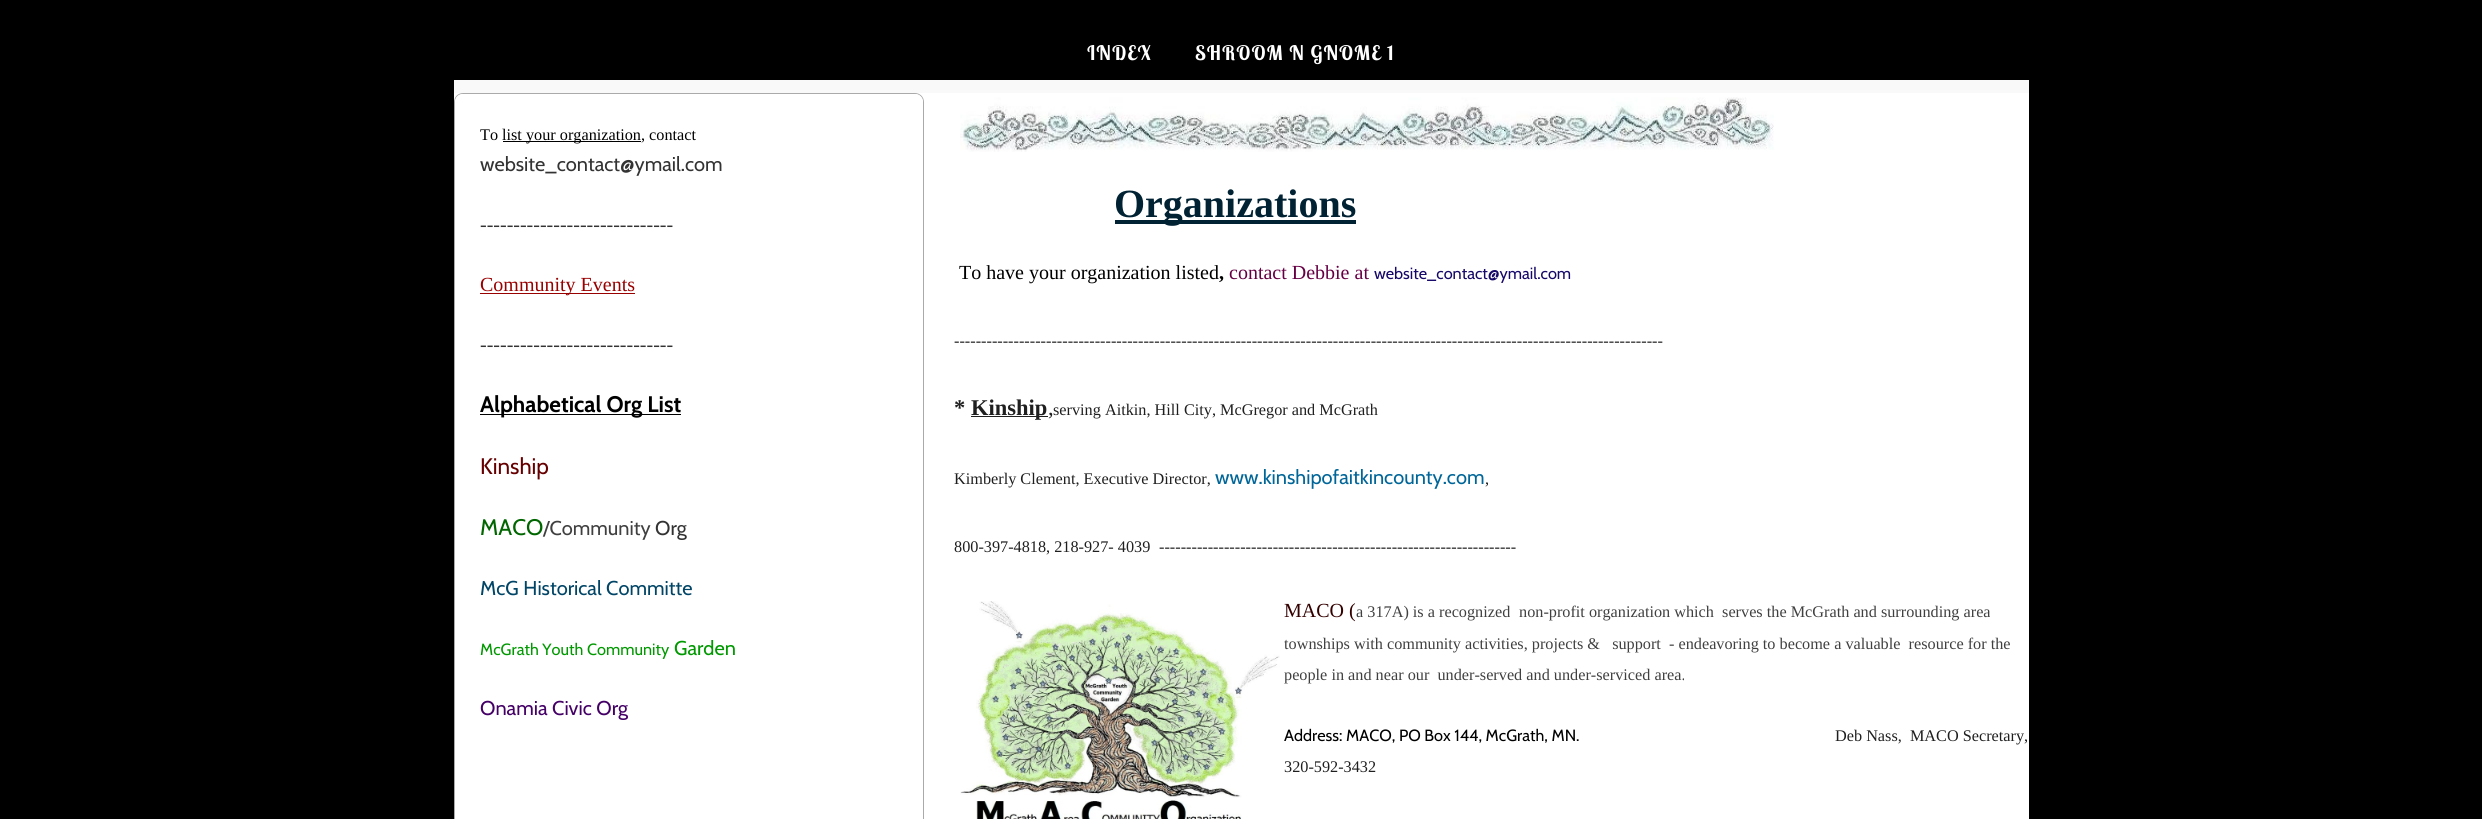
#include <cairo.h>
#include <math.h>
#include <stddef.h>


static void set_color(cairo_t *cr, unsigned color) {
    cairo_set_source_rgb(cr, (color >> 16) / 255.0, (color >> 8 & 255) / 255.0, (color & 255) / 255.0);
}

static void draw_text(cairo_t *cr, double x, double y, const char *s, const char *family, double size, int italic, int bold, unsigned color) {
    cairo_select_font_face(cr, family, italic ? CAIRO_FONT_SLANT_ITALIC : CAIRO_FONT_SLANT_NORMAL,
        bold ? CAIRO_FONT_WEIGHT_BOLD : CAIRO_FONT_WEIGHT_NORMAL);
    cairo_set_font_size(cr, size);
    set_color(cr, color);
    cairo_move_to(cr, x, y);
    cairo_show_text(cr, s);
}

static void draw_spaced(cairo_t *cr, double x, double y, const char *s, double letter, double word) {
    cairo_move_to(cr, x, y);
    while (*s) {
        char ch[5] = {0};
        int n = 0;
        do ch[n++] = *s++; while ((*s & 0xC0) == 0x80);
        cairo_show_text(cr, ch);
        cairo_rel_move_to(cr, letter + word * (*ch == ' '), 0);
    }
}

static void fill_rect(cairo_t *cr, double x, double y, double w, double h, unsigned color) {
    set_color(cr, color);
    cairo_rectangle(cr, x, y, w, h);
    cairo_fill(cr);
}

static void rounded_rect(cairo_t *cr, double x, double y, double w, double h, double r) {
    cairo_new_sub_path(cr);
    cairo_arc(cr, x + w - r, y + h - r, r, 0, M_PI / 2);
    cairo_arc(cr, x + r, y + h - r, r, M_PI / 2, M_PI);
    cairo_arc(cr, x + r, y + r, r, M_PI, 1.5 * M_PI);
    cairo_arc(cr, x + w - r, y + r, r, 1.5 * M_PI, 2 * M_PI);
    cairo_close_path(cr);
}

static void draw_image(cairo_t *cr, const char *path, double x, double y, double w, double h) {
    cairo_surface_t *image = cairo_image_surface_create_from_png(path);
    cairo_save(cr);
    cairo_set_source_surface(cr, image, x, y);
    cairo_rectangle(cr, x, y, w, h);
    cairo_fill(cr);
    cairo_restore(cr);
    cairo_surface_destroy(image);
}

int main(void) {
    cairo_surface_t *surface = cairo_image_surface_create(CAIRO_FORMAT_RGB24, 2482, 819);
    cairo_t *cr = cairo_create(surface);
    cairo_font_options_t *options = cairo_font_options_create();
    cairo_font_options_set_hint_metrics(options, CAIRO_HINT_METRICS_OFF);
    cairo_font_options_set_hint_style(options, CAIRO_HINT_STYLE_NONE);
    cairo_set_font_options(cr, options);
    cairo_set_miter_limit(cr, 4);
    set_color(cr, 0x000000);
    cairo_paint(cr);
    cairo_select_font_face(cr, "Lobster Two", CAIRO_FONT_SLANT_NORMAL, CAIRO_FONT_WEIGHT_BOLD);
    cairo_set_font_size(cr, 20);
    set_color(cr, 0xFFFFFF);
    draw_spaced(cr, 1087, 60, "INDEX", 1.25, 0);
    draw_spaced(cr, 1195, 60, "SHROOM N GNOME 1", 1.25, 0);
    fill_rect(cr, 454, 80, 1575, 13, 0xF9F9F9);
    fill_rect(cr, 454, 93, 1575, 726, 0xFFFFFF);
    rounded_rect(cr, 454.5, 93.5, 469, 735, 8.5);
    set_color(cr, 0xAAAAAA);
    cairo_set_line_width(cr, 1);
    cairo_stroke(cr);
    set_color(cr, 0xFFFFFF);
    rounded_rect(cr, 455, 94, 468, 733, 8);
    cairo_fill(cr);
    draw_text(cr, 480, 140, "To", "Liberation Serif", 16.25, 0, 0, 0x000000);
    fill_rect(cr, 503, 141, 138, 1, 0x000000);
    draw_text(cr, 502, 140, "list your organization, contact", "Liberation Serif", 16.25, 0, 0, 0x000000);
    draw_text(cr, 480, 171, "website_contact@ymail.com", "Cabin", 20, 0, 0, 0x333333);
    draw_text(cr, 480, 231, "-----------------------------", "Liberation Serif", 20, 0, 0, 0x333333);
    fill_rect(cr, 480, 293, 155, 1, 0x990000);
    draw_text(cr, 480, 291, "Community Events", "Liberation Serif", 20, 0, 0, 0x990000);
    draw_text(cr, 480, 351, "-----------------------------", "Liberation Serif", 20, 0, 0, 0x333333);
    fill_rect(cr, 480, 414, 201, 1, 0x000000);
    draw_text(cr, 480, 412, "Alphabetical Org List", "Cabin", 22.5, 0, 1, 0x000000);
    draw_text(cr, 480, 474, "Kinship", "Cabin", 22.5, 0, 0, 0x660000);
    draw_text(cr, 480, 535, "MACO", "Cabin", 22.5, 0, 0, 0x006600);
    draw_text(cr, 543, 535, "/Community", "Cabin", 20, 0, 0, 0x404040);
    draw_text(cr, 655, 535, "Org", "Cabin", 20, 0, 0, 0x333333);
    draw_text(cr, 480, 595, "McG Historical Committe", "Cabin", 20, 0, 0, 0x004466);
    draw_text(cr, 480, 655, "McGrath Youth Community", "Cabin", 16.25, 0, 0, 0x009900);
    draw_text(cr, 674, 655, "Garden", "Cabin", 20, 0, 0, 0x009900);
    draw_text(cr, 480, 715, "Onamia Civic Org", "Cabin", 20, 0, 0, 0x440066);
    draw_image(cr, "assets/img1.png", 960, 97, 814, 55);
    fill_rect(cr, 1115, 220, 241, 4, 0x002233);
    draw_text(cr, 1114, 217, "Organizations", "Liberation Serif", 40, 0, 1, 0x002233);
    draw_text(cr, 959, 279, "To have your organization listed", "Liberation Serif", 20, 0, 0, 0x000000);
    draw_text(cr, 1219, 279, ",", "Liberation Serif", 20, 0, 1, 0x000000);
    draw_text(cr, 1229, 279, "contact Debbie at", "Liberation Serif", 20, 0, 0, 0x660044);
    draw_text(cr, 1374, 279, "website_contact@ymail.com", "Cabin", 16.25, 0, 0, 0x150869);
    draw_text(cr, 954, 346, "-----------------------------------------------------------------------------------------------------------------------------------", "Liberation Serif", 16.25, 0, 0, 0x1F1F1F);
    draw_text(cr, 954, 415, "*", "Liberation Serif", 22.5, 0, 1, 0x1F1F1F);
    fill_rect(cr, 971, 416, 77, 1, 0x1F1F1F);
    draw_text(cr, 971, 415, "Kinship", "Liberation Serif", 22.5, 0, 1, 0x1F1F1F);
    draw_text(cr, 1048, 415, ",", "Liberation Serif", 22.5, 0, 0, 0x1F1F1F);
    draw_text(cr, 1053, 415, "serving Aitkin, Hill City, McGregor and McGrath", "Liberation Serif", 16.25, 0, 0, 0x1F1F1F);
    draw_text(cr, 954, 484, "Kimberly Clement, Executive Director,", "Liberation Serif", 16.25, 0, 0, 0x1F1F1F);
    draw_text(cr, 1215, 484, "www.kinshipofaitkincounty.com", "Cabin", 20, 0, 0, 0x006699);
    draw_text(cr, 1485, 484, ",", "Liberation Serif", 16.25, 0, 0, 0x1F1F1F);
    draw_text(cr, 954, 552, "800-397-4818, 218-927- 4039", "Liberation Serif", 16.25, 0, 0, 0x1F1F1F);
    draw_text(cr, 1159, 552, "------------------------------------------------------------------", "Liberation Serif", 16.25, 0, 0, 0x1F1F1F);
    draw_image(cr, "assets/img2.png", 960, 601, 320, 218);
    draw_text(cr, 1284, 617, "MACO (", "Liberation Serif", 20, 0, 0, 0x330000);
    draw_text(cr, 1356, 617, "a 317A) is a recognized", "Liberation Serif", 16.25, 0, 0, 0x404040);
    draw_text(cr, 1519, 617, "non-profit organization which  serves the McGrath and surrounding area", "Liberation Serif", 16.25, 0, 0, 0x404040);
    draw_text(cr, 1284, 649, "townships with community activities, projects &   support  - endeavoring to become a valuable  resource for the", "Liberation Serif", 16.25, 0, 0, 0x404040);
    draw_text(cr, 1284, 680, "people in and near our  under-served and under-serviced area.", "Liberation Serif", 16.25, 0, 0, 0x404040);
    draw_text(cr, 1284, 741, "Address: MACO, PO Box 144, McGrath, MN.", "Cabin", 16.25, 0, 0, 0x000000);
    draw_text(cr, 1835, 741, "Deb Nass,  MACO Secretary,", "Liberation Serif", 16.25, 0, 0, 0x1F1F1F);
    draw_text(cr, 1284, 772, "320-592-3432", "Liberation Serif", 16.25, 0, 0, 0x1F1F1F);
    cairo_surface_write_to_png(surface, "output.png");
    cairo_font_options_destroy(options);
    cairo_destroy(cr);
    cairo_surface_destroy(surface);
    return 0;
}
